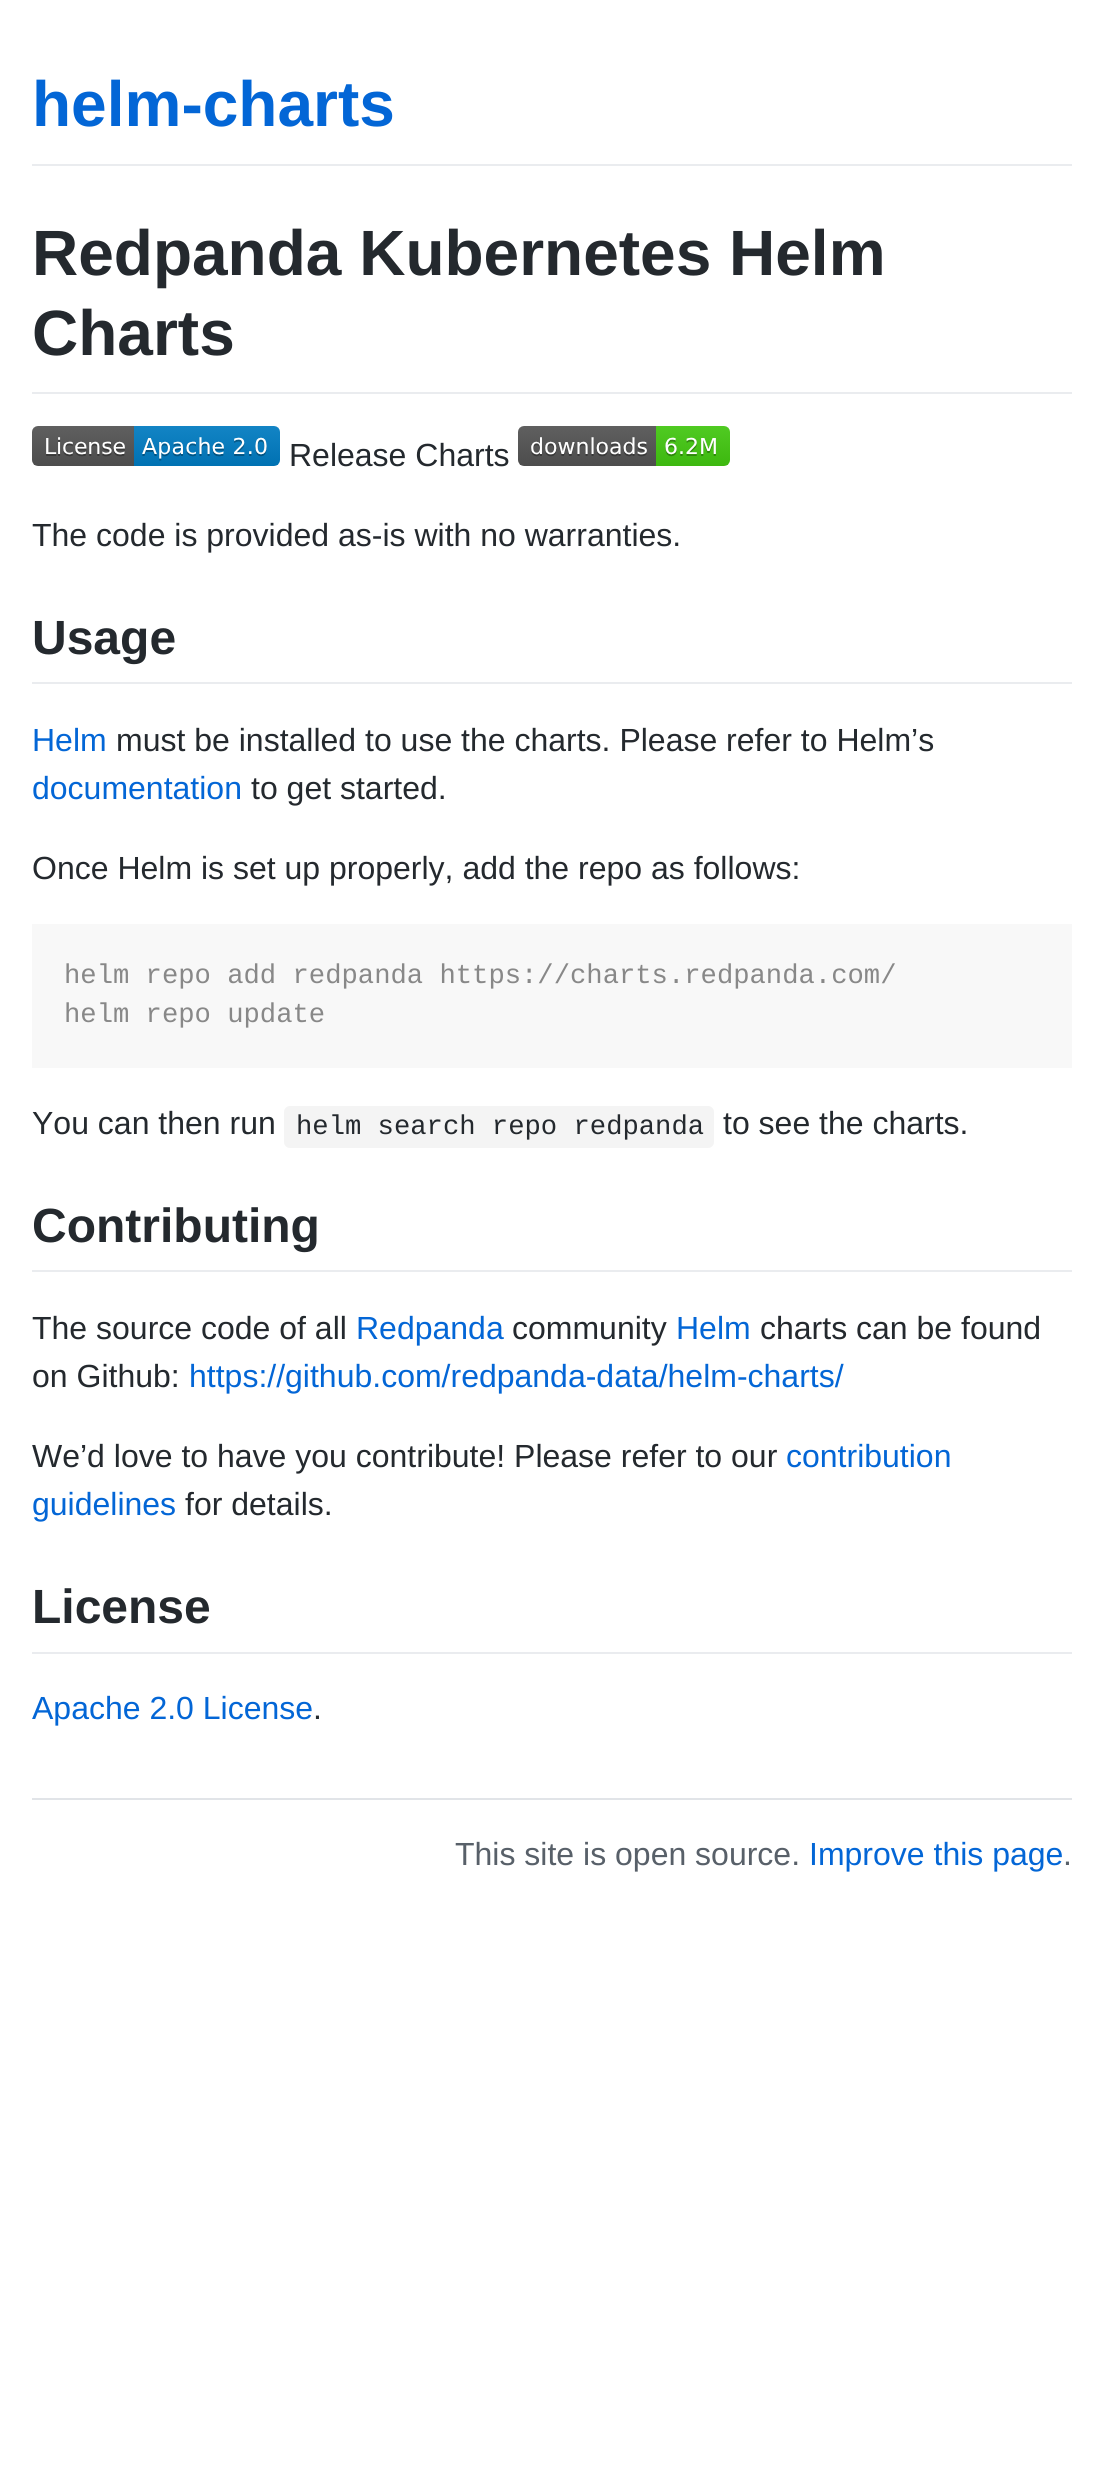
#include <cairo.h>
#include <math.h>
#include <stddef.h>


static void set_color(cairo_t *cr, unsigned color) {
    cairo_set_source_rgb(cr, (color >> 16) / 255.0, (color >> 8 & 255) / 255.0, (color & 255) / 255.0);
}

static void draw_text(cairo_t *cr, double x, double y, const char *s, const char *family, double size, int italic, int bold, unsigned color) {
    cairo_select_font_face(cr, family, italic ? CAIRO_FONT_SLANT_ITALIC : CAIRO_FONT_SLANT_NORMAL,
        bold ? CAIRO_FONT_WEIGHT_BOLD : CAIRO_FONT_WEIGHT_NORMAL);
    cairo_set_font_size(cr, size);
    set_color(cr, color);
    cairo_move_to(cr, x, y);
    cairo_show_text(cr, s);
}

static void fill_rect(cairo_t *cr, double x, double y, double w, double h, unsigned color) {
    set_color(cr, color);
    cairo_rectangle(cr, x, y, w, h);
    cairo_fill(cr);
}

static void rounded_rect(cairo_t *cr, double x, double y, double w, double h, double r) {
    cairo_new_sub_path(cr);
    cairo_arc(cr, x + w - r, y + h - r, r, 0, M_PI / 2);
    cairo_arc(cr, x + r, y + h - r, r, M_PI / 2, M_PI);
    cairo_arc(cr, x + r, y + r, r, M_PI, 1.5 * M_PI);
    cairo_arc(cr, x + w - r, y + r, r, 1.5 * M_PI, 2 * M_PI);
    cairo_close_path(cr);
}

static void draw_image(cairo_t *cr, const char *path, double x, double y, double w, double h) {
    cairo_surface_t *image = cairo_image_surface_create_from_png(path);
    cairo_save(cr);
    cairo_set_source_surface(cr, image, x, y);
    cairo_rectangle(cr, x, y, w, h);
    cairo_fill(cr);
    cairo_restore(cr);
    cairo_surface_destroy(image);
}

int main(void) {
    cairo_surface_t *surface = cairo_image_surface_create(CAIRO_FORMAT_RGB24, 1103, 2474);
    cairo_t *cr = cairo_create(surface);
    cairo_font_options_t *options = cairo_font_options_create();
    cairo_font_options_set_hint_metrics(options, CAIRO_HINT_METRICS_OFF);
    cairo_font_options_set_hint_style(options, CAIRO_HINT_STYLE_NONE);
    cairo_set_font_options(cr, options);
    cairo_set_miter_limit(cr, 4);
    set_color(cr, 0xFFFFFF);
    cairo_paint(cr);
    fill_rect(cr, 32, 164, 1040, 2, 0xEAECEF);
    draw_text(cr, 32, 126, "helm-charts", "Liberation Sans", 64, 0, 1, 0x0366D6);
    fill_rect(cr, 32, 392, 1040, 2, 0xEAECEF);
    draw_text(cr, 32, 275, "Redpanda Kubernetes Helm", "Liberation Sans", 64, 0, 1, 0x24292E);
    draw_text(cr, 32, 355, "Charts", "Liberation Sans", 64, 0, 1, 0x24292E);
    draw_image(cr, "assets/img1.png", 32, 426, 248, 40);
    draw_text(cr, 289, 466, "Release Charts", "Liberation Sans", 32, 0, 0, 0x24292E);
    draw_image(cr, "assets/img2.png", 518, 426, 212, 40);
    draw_text(cr, 32, 546, "The code is provided as-is with no warranties.", "Liberation Sans", 32, 0, 0, 0x24292E);
    fill_rect(cr, 32, 682, 1040, 2, 0xEAECEF);
    draw_text(cr, 32, 654, "Usage", "Liberation Sans", 48, 0, 1, 0x24292E);
    draw_text(cr, 32, 751, "Helm", "Liberation Sans", 32, 0, 0, 0x0366D6);
    draw_text(cr, 116, 751, "must be installed to use the charts. Please refer to Helm’s", "Liberation Sans", 32, 0, 0, 0x24292E);
    draw_text(cr, 32, 799, "documentation", "Liberation Sans", 32, 0, 0, 0x0366D6);
    draw_text(cr, 251, 799, "to get started.", "Liberation Sans", 32, 0, 0, 0x24292E);
    draw_text(cr, 32, 879, "Once Helm is set up properly, add the repo as follows:", "Liberation Sans", 32, 0, 0, 0x24292E);
    fill_rect(cr, 32, 924, 1040, 144, 0xF8F8F8);
    draw_text(cr, 64, 983, "helm repo add redpanda https://charts.redpanda.com/", "Liberation Mono", 27.2, 0, 0, 0x888888);
    draw_text(cr, 64, 1022, "helm repo update", "Liberation Mono", 27.2, 0, 0, 0x888888);
    draw_text(cr, 32, 1134, "You can then run", "Liberation Sans", 32, 0, 0, 0x24292E);
    set_color(cr, 0xF4F4F4);
    rounded_rect(cr, 284, 1106, 430, 42, 6);
    cairo_fill(cr);
    draw_text(cr, 296, 1134, "helm search repo redpanda", "Liberation Mono", 27.2, 0, 0, 0x24292E);
    draw_text(cr, 723, 1134, "to see the charts.", "Liberation Sans", 32, 0, 0, 0x24292E);
    fill_rect(cr, 32, 1270, 1040, 2, 0xEAECEF);
    draw_text(cr, 32, 1242, "Contributing", "Liberation Sans", 48, 0, 1, 0x24292E);
    draw_text(cr, 32, 1339, "The source code of all", "Liberation Sans", 32, 0, 0, 0x24292E);
    draw_text(cr, 356, 1339, "Redpanda", "Liberation Sans", 32, 0, 0, 0x0366D6);
    draw_text(cr, 512, 1339, "community", "Liberation Sans", 32, 0, 0, 0x24292E);
    draw_text(cr, 676, 1339, "Helm", "Liberation Sans", 32, 0, 0, 0x0366D6);
    draw_text(cr, 760, 1339, "charts can be found", "Liberation Sans", 32, 0, 0, 0x24292E);
    draw_text(cr, 32, 1387, "on Github:", "Liberation Sans", 32, 0, 0, 0x24292E);
    draw_text(cr, 189, 1387, "https://github.com/redpanda-data/helm-charts/", "Liberation Sans", 32, 0, 0, 0x0366D6);
    draw_text(cr, 32, 1467, "We’d love to have you contribute! Please refer to our", "Liberation Sans", 32, 0, 0, 0x24292E);
    draw_text(cr, 786, 1467, "contribution", "Liberation Sans", 32, 0, 0, 0x0366D6);
    draw_text(cr, 32, 1515, "guidelines", "Liberation Sans", 32, 0, 0, 0x0366D6);
    draw_text(cr, 185, 1515, "for details.", "Liberation Sans", 32, 0, 0, 0x24292E);
    fill_rect(cr, 32, 1652, 1040, 2, 0xEAECEF);
    draw_text(cr, 32, 1623, "License", "Liberation Sans", 48, 0, 1, 0x24292E);
    draw_text(cr, 32, 1719, "Apache 2.0 License", "Liberation Sans", 32, 0, 0, 0x0366D6);
    draw_text(cr, 313, 1719, ".", "Liberation Sans", 32, 0, 0, 0x24292E);
    fill_rect(cr, 32, 1798, 1040, 2, 0xE1E4E8);
    draw_text(cr, 455, 1865, "This site is open source.", "Liberation Sans", 32, 0, 0, 0x586069);
    draw_text(cr, 809, 1865, "Improve this page", "Liberation Sans", 32, 0, 0, 0x0366D6);
    draw_text(cr, 1063, 1865, ".", "Liberation Sans", 32, 0, 0, 0x586069);
    cairo_surface_write_to_png(surface, "output.png");
    cairo_font_options_destroy(options);
    cairo_destroy(cr);
    cairo_surface_destroy(surface);
    return 0;
}
